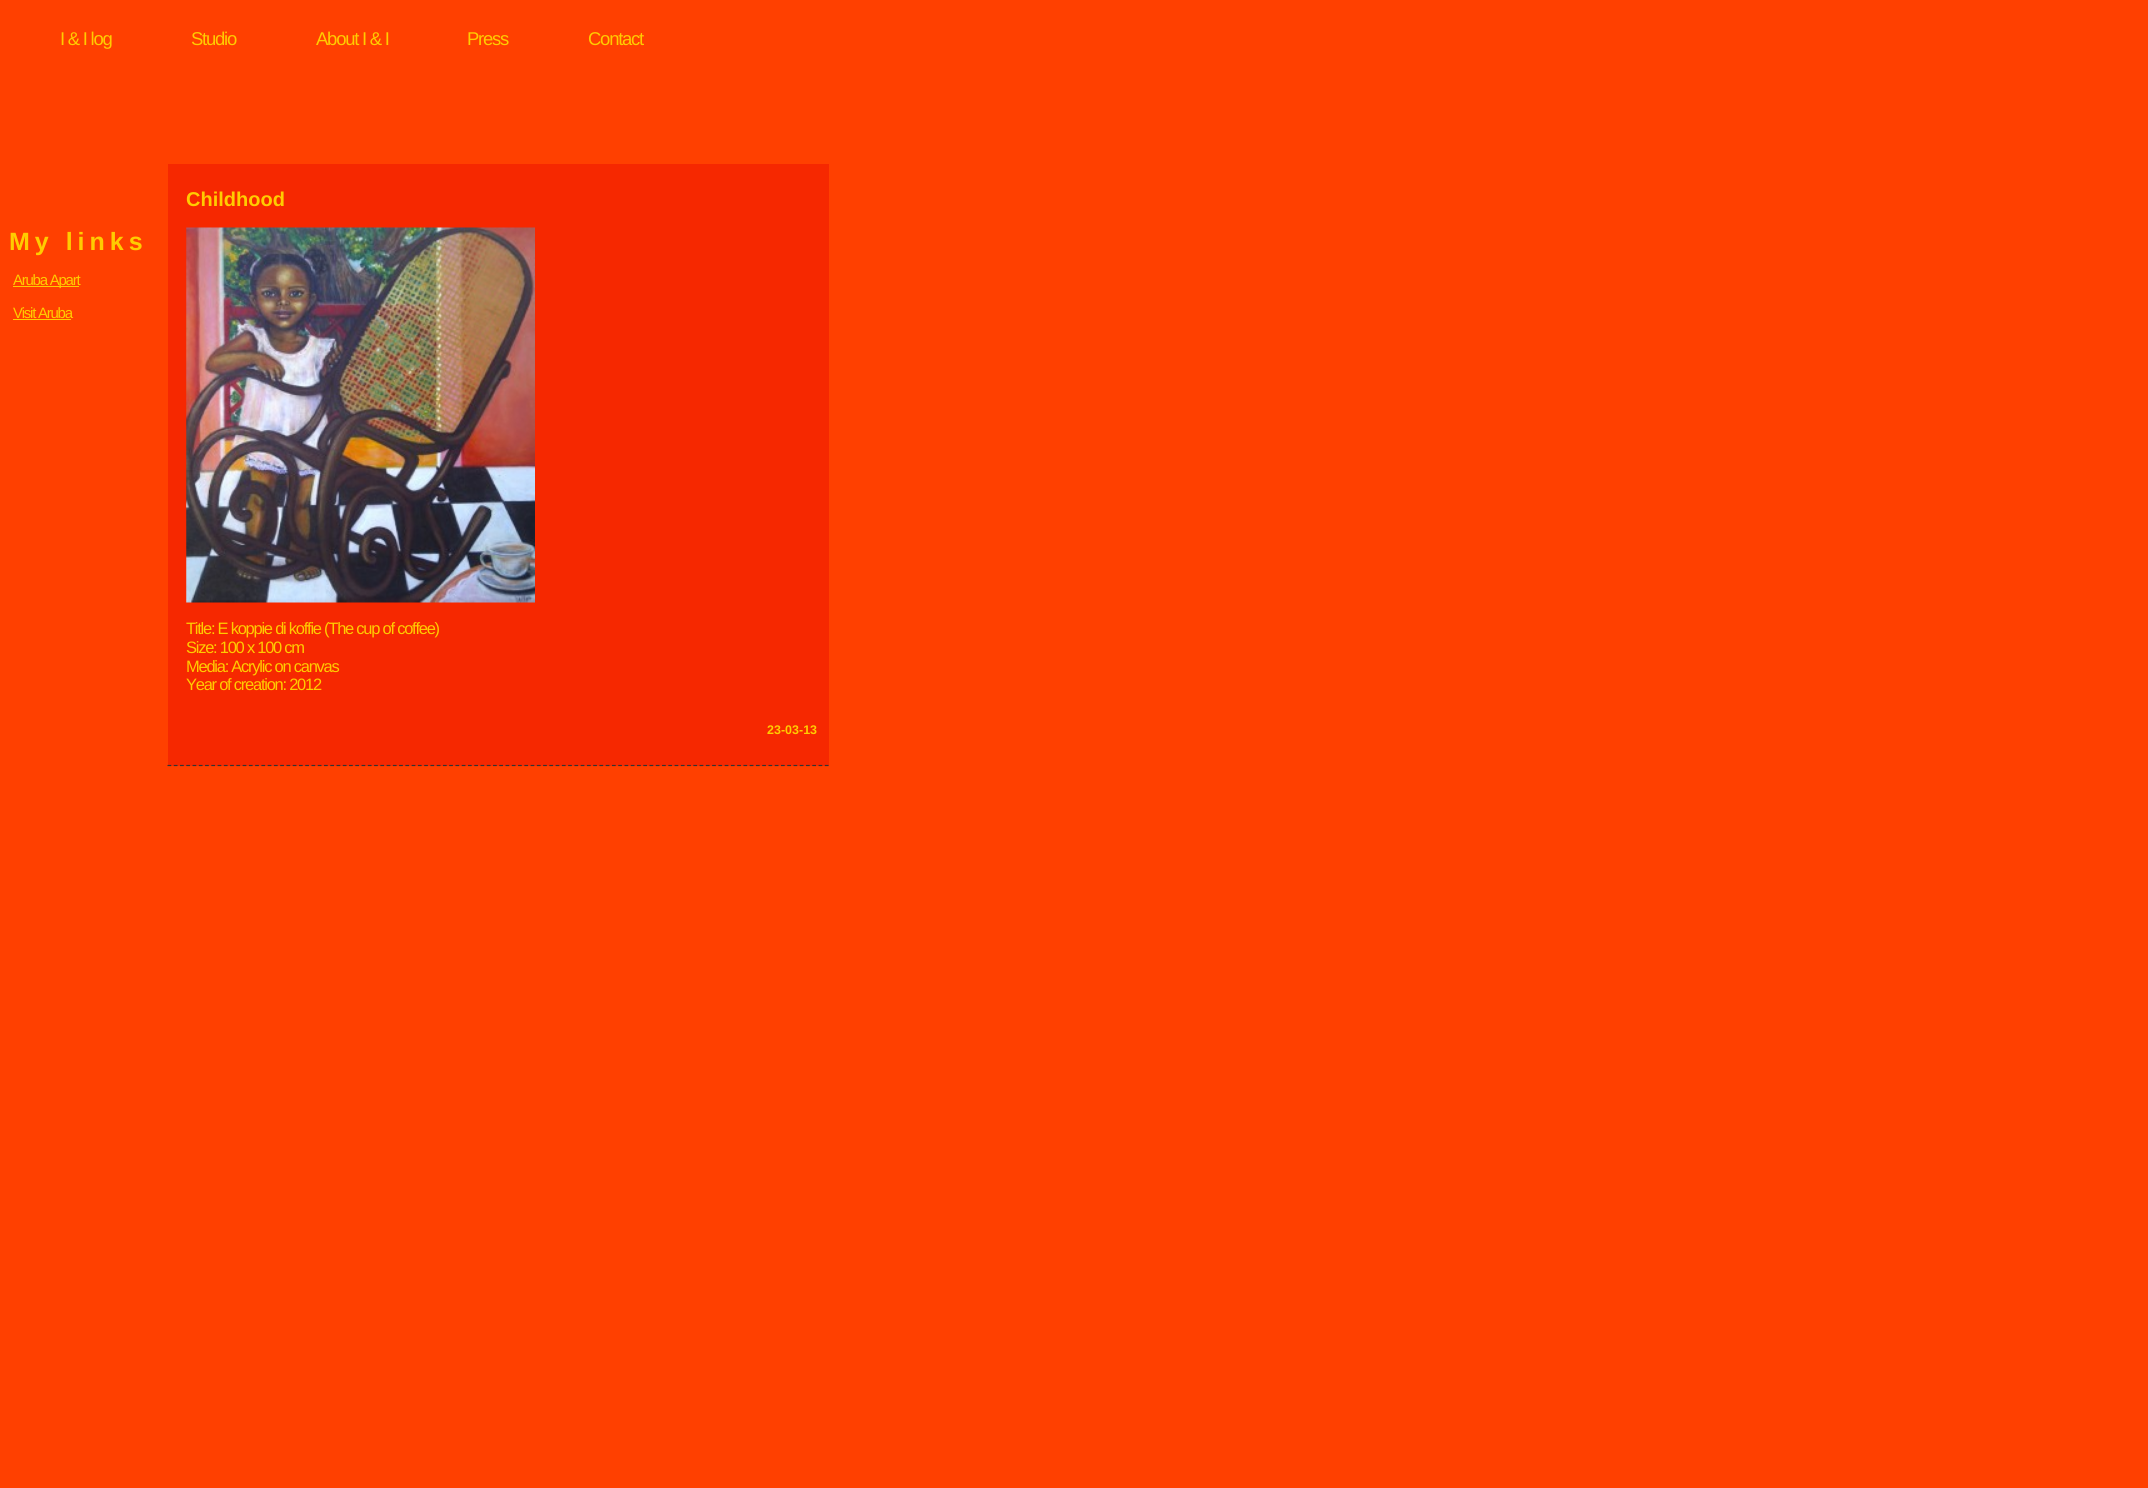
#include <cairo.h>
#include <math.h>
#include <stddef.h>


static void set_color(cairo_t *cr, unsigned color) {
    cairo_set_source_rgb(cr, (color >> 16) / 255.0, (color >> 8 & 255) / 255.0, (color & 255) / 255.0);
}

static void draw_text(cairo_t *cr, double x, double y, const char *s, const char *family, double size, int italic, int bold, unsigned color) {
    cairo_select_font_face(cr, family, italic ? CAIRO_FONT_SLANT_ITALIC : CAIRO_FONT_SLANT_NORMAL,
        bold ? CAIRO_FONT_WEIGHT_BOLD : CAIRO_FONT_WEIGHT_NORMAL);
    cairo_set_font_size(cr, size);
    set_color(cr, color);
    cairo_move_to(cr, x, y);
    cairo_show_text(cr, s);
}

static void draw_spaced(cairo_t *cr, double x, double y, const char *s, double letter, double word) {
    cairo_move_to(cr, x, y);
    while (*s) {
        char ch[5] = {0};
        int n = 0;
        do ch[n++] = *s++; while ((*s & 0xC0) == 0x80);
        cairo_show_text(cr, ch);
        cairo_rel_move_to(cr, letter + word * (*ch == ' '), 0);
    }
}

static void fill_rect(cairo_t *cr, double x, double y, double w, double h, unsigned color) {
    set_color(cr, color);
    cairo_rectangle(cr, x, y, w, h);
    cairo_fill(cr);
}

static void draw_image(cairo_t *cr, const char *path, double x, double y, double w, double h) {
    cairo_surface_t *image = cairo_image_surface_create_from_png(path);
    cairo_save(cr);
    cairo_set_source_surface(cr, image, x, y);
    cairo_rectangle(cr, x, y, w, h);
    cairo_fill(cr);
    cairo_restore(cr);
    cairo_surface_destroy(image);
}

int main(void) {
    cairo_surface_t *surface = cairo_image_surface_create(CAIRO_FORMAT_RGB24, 2148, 1488);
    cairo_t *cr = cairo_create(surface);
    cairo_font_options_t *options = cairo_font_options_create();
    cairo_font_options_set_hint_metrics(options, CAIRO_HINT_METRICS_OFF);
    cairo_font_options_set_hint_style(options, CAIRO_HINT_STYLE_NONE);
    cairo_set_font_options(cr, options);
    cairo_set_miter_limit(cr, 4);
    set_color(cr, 0xFF4000);
    cairo_paint(cr);
    cairo_select_font_face(cr, "Liberation Sans", CAIRO_FONT_SLANT_NORMAL, CAIRO_FONT_WEIGHT_NORMAL);
    cairo_set_font_size(cr, 18.5);
    set_color(cr, 0xFFCC00);
    draw_spaced(cr, 60, 45, "I & I log", -1.25, 0);
    draw_spaced(cr, 191, 45, "Studio", -1.25, 0);
    draw_spaced(cr, 316, 45, "About I & I", -1.25, 0);
    draw_spaced(cr, 467, 45, "Press", -1.25, 0);
    draw_spaced(cr, 588, 45, "Contact", -1.25, 0);
    cairo_select_font_face(cr, "Liberation Sans", CAIRO_FONT_SLANT_NORMAL, CAIRO_FONT_WEIGHT_BOLD);
    cairo_set_font_size(cr, 25);
    draw_spaced(cr, 9, 250, "My links", 5, 0);
    fill_rect(cr, 13, 286, 66, 1, 0xFFCC00);
    cairo_select_font_face(cr, "Liberation Sans", CAIRO_FONT_SLANT_NORMAL, CAIRO_FONT_WEIGHT_NORMAL);
    cairo_set_font_size(cr, 15);
    draw_spaced(cr, 13, 285, "Aruba Apart", -1.25, 0);
    draw_spaced(cr, 13, 318, "Visit Aruba", -1.25, 0);
    fill_rect(cr, 13, 319, 58, 1, 0xFFCC00);
    fill_rect(cr, 168, 164, 661, 602, 0xF62800);
    cairo_new_path(cr);
    cairo_move_to(cr, 167.5, 765.5);
    cairo_line_to(cr, 829, 765.5);
    set_color(cr, 0x333333);
    cairo_set_line_width(cr, 1.2);
    cairo_set_dash(cr, (double[]){3.75, 2.51}, 2, 0);
    cairo_stroke(cr);
    draw_text(cr, 186, 206, "Childhood", "Liberation Sans", 20, 0, 1, 0xFFCC00);
    draw_image(cr, "assets/img1.png", 186, 227, 349, 376);
    cairo_select_font_face(cr, "Liberation Sans", CAIRO_FONT_SLANT_NORMAL, CAIRO_FONT_WEIGHT_NORMAL);
    cairo_set_font_size(cr, 16.5);
    draw_spaced(cr, 186, 634, "Title: E koppie di koffie (The cup of coffee)", -1.25, 0);
    draw_spaced(cr, 186, 653, "Size: 100 x 100 cm", -1.25, 0);
    draw_spaced(cr, 186, 672, "Media: Acrylic on canvas", -1.25, 0);
    draw_spaced(cr, 186, 690, "Year of creation: 2012", -1.25, 0);
    draw_text(cr, 767, 734, "23-03-13", "Liberation Sans", 12.5, 0, 1, 0xFFCC00);
    cairo_surface_write_to_png(surface, "output.png");
    cairo_font_options_destroy(options);
    cairo_destroy(cr);
    cairo_surface_destroy(surface);
    return 0;
}
